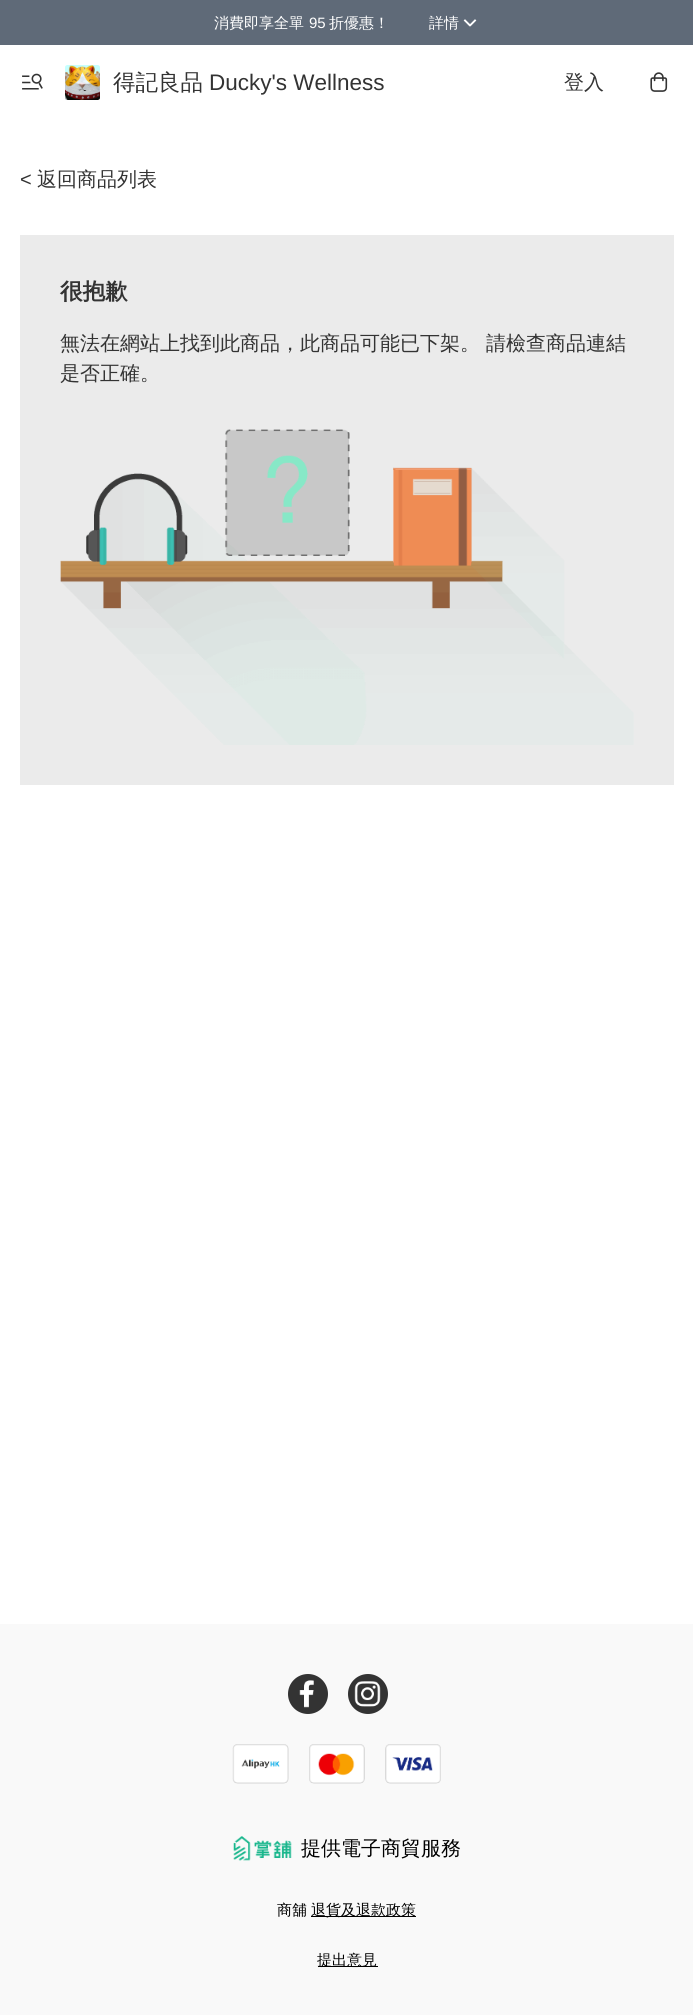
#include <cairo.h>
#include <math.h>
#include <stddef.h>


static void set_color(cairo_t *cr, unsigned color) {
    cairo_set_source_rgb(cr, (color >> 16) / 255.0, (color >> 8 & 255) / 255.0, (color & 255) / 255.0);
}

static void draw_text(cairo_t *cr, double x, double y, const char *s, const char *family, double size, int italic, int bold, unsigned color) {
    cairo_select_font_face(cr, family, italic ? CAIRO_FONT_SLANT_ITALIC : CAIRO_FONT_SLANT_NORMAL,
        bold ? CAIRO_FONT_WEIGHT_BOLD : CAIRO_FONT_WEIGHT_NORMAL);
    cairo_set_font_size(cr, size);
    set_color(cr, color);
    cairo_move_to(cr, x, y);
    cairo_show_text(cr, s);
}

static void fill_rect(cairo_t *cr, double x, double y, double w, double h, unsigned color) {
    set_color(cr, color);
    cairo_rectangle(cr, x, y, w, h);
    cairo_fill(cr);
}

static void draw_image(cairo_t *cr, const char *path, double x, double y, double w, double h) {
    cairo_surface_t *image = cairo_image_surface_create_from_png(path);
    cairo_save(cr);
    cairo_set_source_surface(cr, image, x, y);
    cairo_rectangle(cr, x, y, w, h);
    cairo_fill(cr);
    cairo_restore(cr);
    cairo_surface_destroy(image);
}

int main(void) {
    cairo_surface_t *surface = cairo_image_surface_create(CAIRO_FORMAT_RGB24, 693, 2015);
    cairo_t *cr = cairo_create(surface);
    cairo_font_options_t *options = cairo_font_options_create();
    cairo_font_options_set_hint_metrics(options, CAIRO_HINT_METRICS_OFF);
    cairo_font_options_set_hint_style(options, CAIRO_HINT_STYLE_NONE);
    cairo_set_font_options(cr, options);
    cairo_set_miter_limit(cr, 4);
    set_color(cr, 0xFFFFFF);
    cairo_paint(cr);
    fill_rect(cr, 0, 0, 693, 45, 0x5F6A78);
    draw_text(cr, 214, 28, "消費即享全單", "WenQuanYi Zen Hei Medium", 15, 0, 0, 0xFFFFFF);
    draw_text(cr, 309, 28, "95", "Liberation Sans", 15, 0, 0, 0xFFFFFF);
    draw_text(cr, 329, 28, "折優惠！", "WenQuanYi Zen Hei Medium", 15, 0, 0, 0xFFFFFF);
    draw_text(cr, 429, 28, "詳情", "WenQuanYi Zen Hei Medium", 15, 0, 0, 0xFFFFFF);
    cairo_new_path(cr);
    cairo_move_to(cr, 465, 20.5);
    cairo_line_to(cr, 470, 25.5);
    cairo_line_to(cr, 475, 20.5);
    cairo_set_line_width(cr, 1.9);
    cairo_set_line_cap(cr, CAIRO_LINE_CAP_SQUARE);
    cairo_set_line_join(cr, CAIRO_LINE_JOIN_ROUND);
    cairo_stroke(cr);
    draw_image(cr, "assets/img1.png", 22, 73, 21, 17);
    draw_image(cr, "assets/img2.png", 65, 65, 35, 35);
    draw_text(cr, 113, 90, "得記良品", "WenQuanYi Zen Hei Medium", 22.5, 0, 0, 0x333333);
    draw_text(cr, 209, 90, "Ducky's Wellness", "Liberation Sans", 22.5, 0, 0, 0x333333);
    draw_text(cr, 564, 89, "登入", "WenQuanYi Zen Hei Medium", 20, 0, 0, 0x333333);
    draw_image(cr, "assets/img3.png", 650, 72, 18, 20);
    draw_text(cr, 20, 186, "<", "Liberation Sans", 20, 0, 0, 0x333333);
    draw_text(cr, 37, 186, "返回商品列表", "WenQuanYi Zen Hei Medium", 20, 0, 0, 0x333333);
    fill_rect(cr, 20, 235, 654, 550, 0xEBEBEB);
    draw_text(cr, 60, 299, "很抱歉", "WenQuanYi Zen Hei", 22.5, 0, 1, 0x333333);
    draw_text(cr, 60, 350, "無法在網站上找到此商品，此商品可能已下架。 請檢查商品連結", "WenQuanYi Zen Hei Medium", 20, 0, 0, 0x333333);
    draw_text(cr, 60, 380, "是否正確。", "WenQuanYi Zen Hei Medium", 20, 0, 0, 0x333333);
    draw_image(cr, "assets/img4.png", 60, 429, 574, 316);
    fill_rect(cr, 0, 1624, 693, 391, 0xF9F9F9);
    set_color(cr, 0x333333);
    cairo_arc(cr, 308, 1694, 20, 0, 2 * M_PI);
    cairo_fill(cr);
    draw_image(cr, "assets/img5.png", 299, 1680, 15, 28);
    cairo_arc(cr, 368, 1694, 20, 0, 2 * M_PI);
    cairo_fill(cr);
    draw_image(cr, "assets/img6.png", 354, 1681, 27, 26);
    draw_image(cr, "assets/img7.png", 232, 1744, 57, 40);
    draw_image(cr, "assets/img8.png", 309, 1744, 56, 40);
    draw_image(cr, "assets/img9.png", 385, 1744, 56, 40);
    draw_image(cr, "assets/img10.png", 233, 1836, 59, 25);
    draw_text(cr, 301, 1855, "提供電子商貿服務", "WenQuanYi Zen Hei Medium", 20, 0, 0, 0x000000);
    draw_text(cr, 277, 1915, "商舖", "WenQuanYi Zen Hei Medium", 15, 0, 0, 0x000000);
    fill_rect(cr, 311, 1916, 105, 1, 0x000000);
    draw_text(cr, 311, 1915, "退貨及退款政策", "WenQuanYi Zen Hei Medium", 15, 0, 0, 0x000000);
    fill_rect(cr, 318, 1966, 60, 1, 0x000000);
    draw_text(cr, 317, 1965, "提出意見", "WenQuanYi Zen Hei Medium", 15, 0, 0, 0x000000);
    cairo_surface_write_to_png(surface, "output.png");
    cairo_font_options_destroy(options);
    cairo_destroy(cr);
    cairo_surface_destroy(surface);
    return 0;
}
